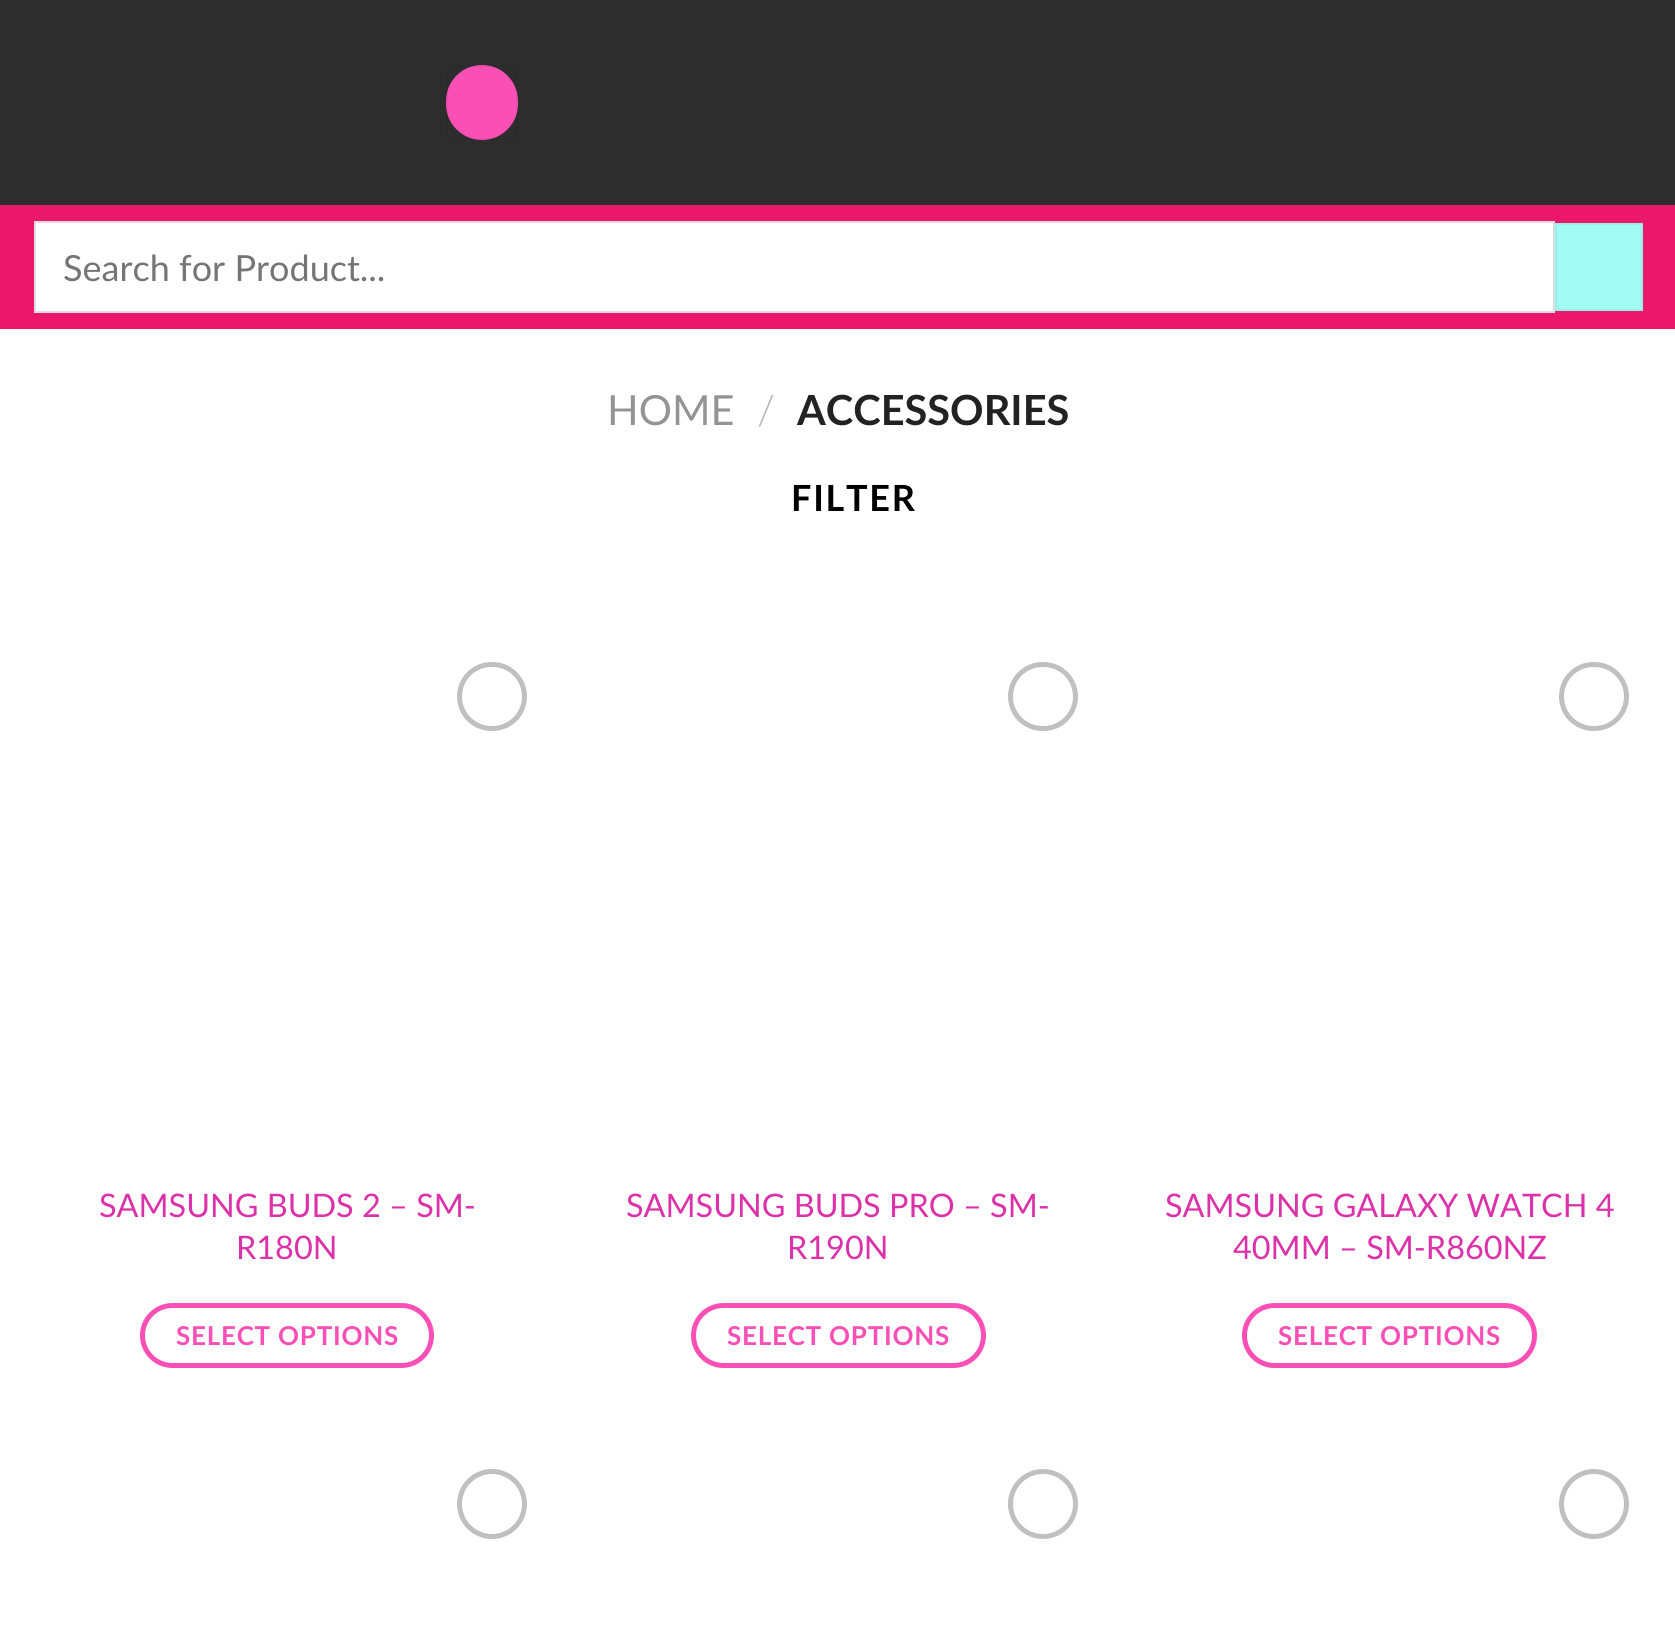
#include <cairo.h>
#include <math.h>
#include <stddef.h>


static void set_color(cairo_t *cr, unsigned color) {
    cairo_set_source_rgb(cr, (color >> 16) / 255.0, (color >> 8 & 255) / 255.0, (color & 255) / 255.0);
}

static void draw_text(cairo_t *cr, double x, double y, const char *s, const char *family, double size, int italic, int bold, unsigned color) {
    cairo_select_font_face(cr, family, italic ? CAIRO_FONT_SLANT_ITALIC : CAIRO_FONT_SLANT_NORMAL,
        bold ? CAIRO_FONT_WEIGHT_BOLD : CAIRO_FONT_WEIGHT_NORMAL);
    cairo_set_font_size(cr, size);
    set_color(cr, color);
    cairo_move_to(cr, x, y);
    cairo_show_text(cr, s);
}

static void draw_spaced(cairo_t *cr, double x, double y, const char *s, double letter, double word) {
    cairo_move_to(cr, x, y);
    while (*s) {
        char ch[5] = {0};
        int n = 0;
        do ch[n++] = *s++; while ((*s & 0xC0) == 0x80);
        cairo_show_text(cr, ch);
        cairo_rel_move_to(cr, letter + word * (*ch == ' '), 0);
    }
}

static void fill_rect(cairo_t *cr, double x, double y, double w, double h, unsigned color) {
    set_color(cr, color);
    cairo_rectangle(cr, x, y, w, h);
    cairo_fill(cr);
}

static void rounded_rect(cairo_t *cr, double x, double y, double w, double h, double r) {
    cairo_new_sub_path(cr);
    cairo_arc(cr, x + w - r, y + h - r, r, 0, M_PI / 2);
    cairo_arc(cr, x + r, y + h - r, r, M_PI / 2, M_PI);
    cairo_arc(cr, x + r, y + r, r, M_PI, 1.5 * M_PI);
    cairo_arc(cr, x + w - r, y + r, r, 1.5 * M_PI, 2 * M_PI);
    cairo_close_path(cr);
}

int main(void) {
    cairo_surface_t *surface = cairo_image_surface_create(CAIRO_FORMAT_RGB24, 1675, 1633);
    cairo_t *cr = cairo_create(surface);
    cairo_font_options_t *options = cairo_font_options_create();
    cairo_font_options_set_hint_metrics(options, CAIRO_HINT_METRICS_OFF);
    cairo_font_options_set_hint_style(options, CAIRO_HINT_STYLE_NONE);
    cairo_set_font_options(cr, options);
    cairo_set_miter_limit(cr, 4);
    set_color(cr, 0xFFFFFF);
    cairo_paint(cr);
    fill_rect(cr, 0, 0, 1675, 205, 0x2D2D2D);
    set_color(cr, 0xFA50B6);
    rounded_rect(cr, 446, 65, 72, 75, 36);
    cairo_fill(cr);
    cairo_rectangle(cr, 447, 66, 70, 73);
    cairo_set_source_rgba(cr, 0, 0, 0, 0.05);
    cairo_stroke(cr);
    fill_rect(cr, 0, 205, 1675, 124, 0xEA176B);
    set_color(cr, 0xFFFFFF);
    cairo_rectangle(cr, 35, 222, 1519, 90);
    cairo_fill_preserve(cr);
    set_color(cr, 0xDDDDDD);
    cairo_stroke(cr);
    draw_text(cr, 63, 281, "Search for Product...", "Lato", 36, 0, 0, 0x757575);
    set_color(cr, 0xA1FBF2);
    cairo_rectangle(cr, 1556, 224, 86, 86);
    cairo_fill_preserve(cr);
    set_color(cr, 0x99EEE6);
    cairo_stroke(cr);
    draw_text(cr, 607, 425, "HOME", "Lato", 41.5, 0, 0, 0x949494);
    draw_text(cr, 757, 425, "/", "Lato Light", 41.5, 0, 0, 0xB2B2B2);
    draw_text(cr, 797, 425, "ACCESSORIES", "Lato", 41.5, 0, 1, 0x222222);
    cairo_set_font_size(cr, 36);
    set_color(cr, 0x000000);
    draw_spaced(cr, 791, 511, "FILTER", 1.75, 0);
    rounded_rect(cr, 459.5, 664.5, 65, 64, 32);
    set_color(cr, 0xC0C0C0);
    cairo_set_line_width(cr, 5);
    cairo_stroke(cr);
    draw_text(cr, 99, 1217, "SAMSUNG BUDS 2 – SM-", "Lato", 32.4, 0, 0, 0xDC32A9);
    draw_text(cr, 236, 1259, "R180N", "Lato", 32.4, 0, 0, 0xDC32A9);
    rounded_rect(cr, 142.5, 1305.5, 289, 60, 30);
    set_color(cr, 0xFA50B6);
    cairo_stroke(cr);
    cairo_select_font_face(cr, "Lato", CAIRO_FONT_SLANT_NORMAL, CAIRO_FONT_WEIGHT_BOLD);
    cairo_set_font_size(cr, 26);
    draw_spaced(cr, 176, 1345, "SELECT OPTIONS", 0.75, 0);
    rounded_rect(cr, 1010.5, 664.5, 65, 64, 32);
    set_color(cr, 0xC0C0C0);
    cairo_stroke(cr);
    draw_text(cr, 626, 1217, "SAMSUNG BUDS PRO – SM-", "Lato", 32.4, 0, 0, 0xDC32A9);
    draw_text(cr, 787, 1259, "R190N", "Lato", 32.4, 0, 0, 0xDC32A9);
    rounded_rect(cr, 693.5, 1305.5, 290, 60, 30);
    set_color(cr, 0xFA50B6);
    cairo_stroke(cr);
    cairo_select_font_face(cr, "Lato", CAIRO_FONT_SLANT_NORMAL, CAIRO_FONT_WEIGHT_BOLD);
    cairo_set_font_size(cr, 26);
    draw_spaced(cr, 727, 1345, "SELECT OPTIONS", 0.75, 0);
    rounded_rect(cr, 1561.5, 664.5, 65, 64, 32);
    set_color(cr, 0xC0C0C0);
    cairo_stroke(cr);
    draw_text(cr, 1165, 1217, "SAMSUNG GALAXY WATCH 4", "Lato", 32.4, 0, 0, 0xDC32A9);
    draw_text(cr, 1233, 1259, "40MM – SM-R860NZ", "Lato", 32.4, 0, 0, 0xDC32A9);
    rounded_rect(cr, 1244.5, 1305.5, 290, 60, 30);
    set_color(cr, 0xFA50B6);
    cairo_stroke(cr);
    cairo_select_font_face(cr, "Lato", CAIRO_FONT_SLANT_NORMAL, CAIRO_FONT_WEIGHT_BOLD);
    cairo_set_font_size(cr, 26);
    draw_spaced(cr, 1278, 1345, "SELECT OPTIONS", 0.75, 0);
    cairo_new_path(cr);
    cairo_arc(cr, 492, 1504, 32.5, 0, 2 * M_PI);
    set_color(cr, 0xC0C0C0);
    cairo_stroke(cr);
    cairo_arc(cr, 1043, 1504, 32.5, 0, 2 * M_PI);
    cairo_stroke(cr);
    cairo_arc(cr, 1594, 1504, 32.5, 0, 2 * M_PI);
    cairo_stroke(cr);
    cairo_surface_write_to_png(surface, "output.png");
    cairo_font_options_destroy(options);
    cairo_destroy(cr);
    cairo_surface_destroy(surface);
    return 0;
}
